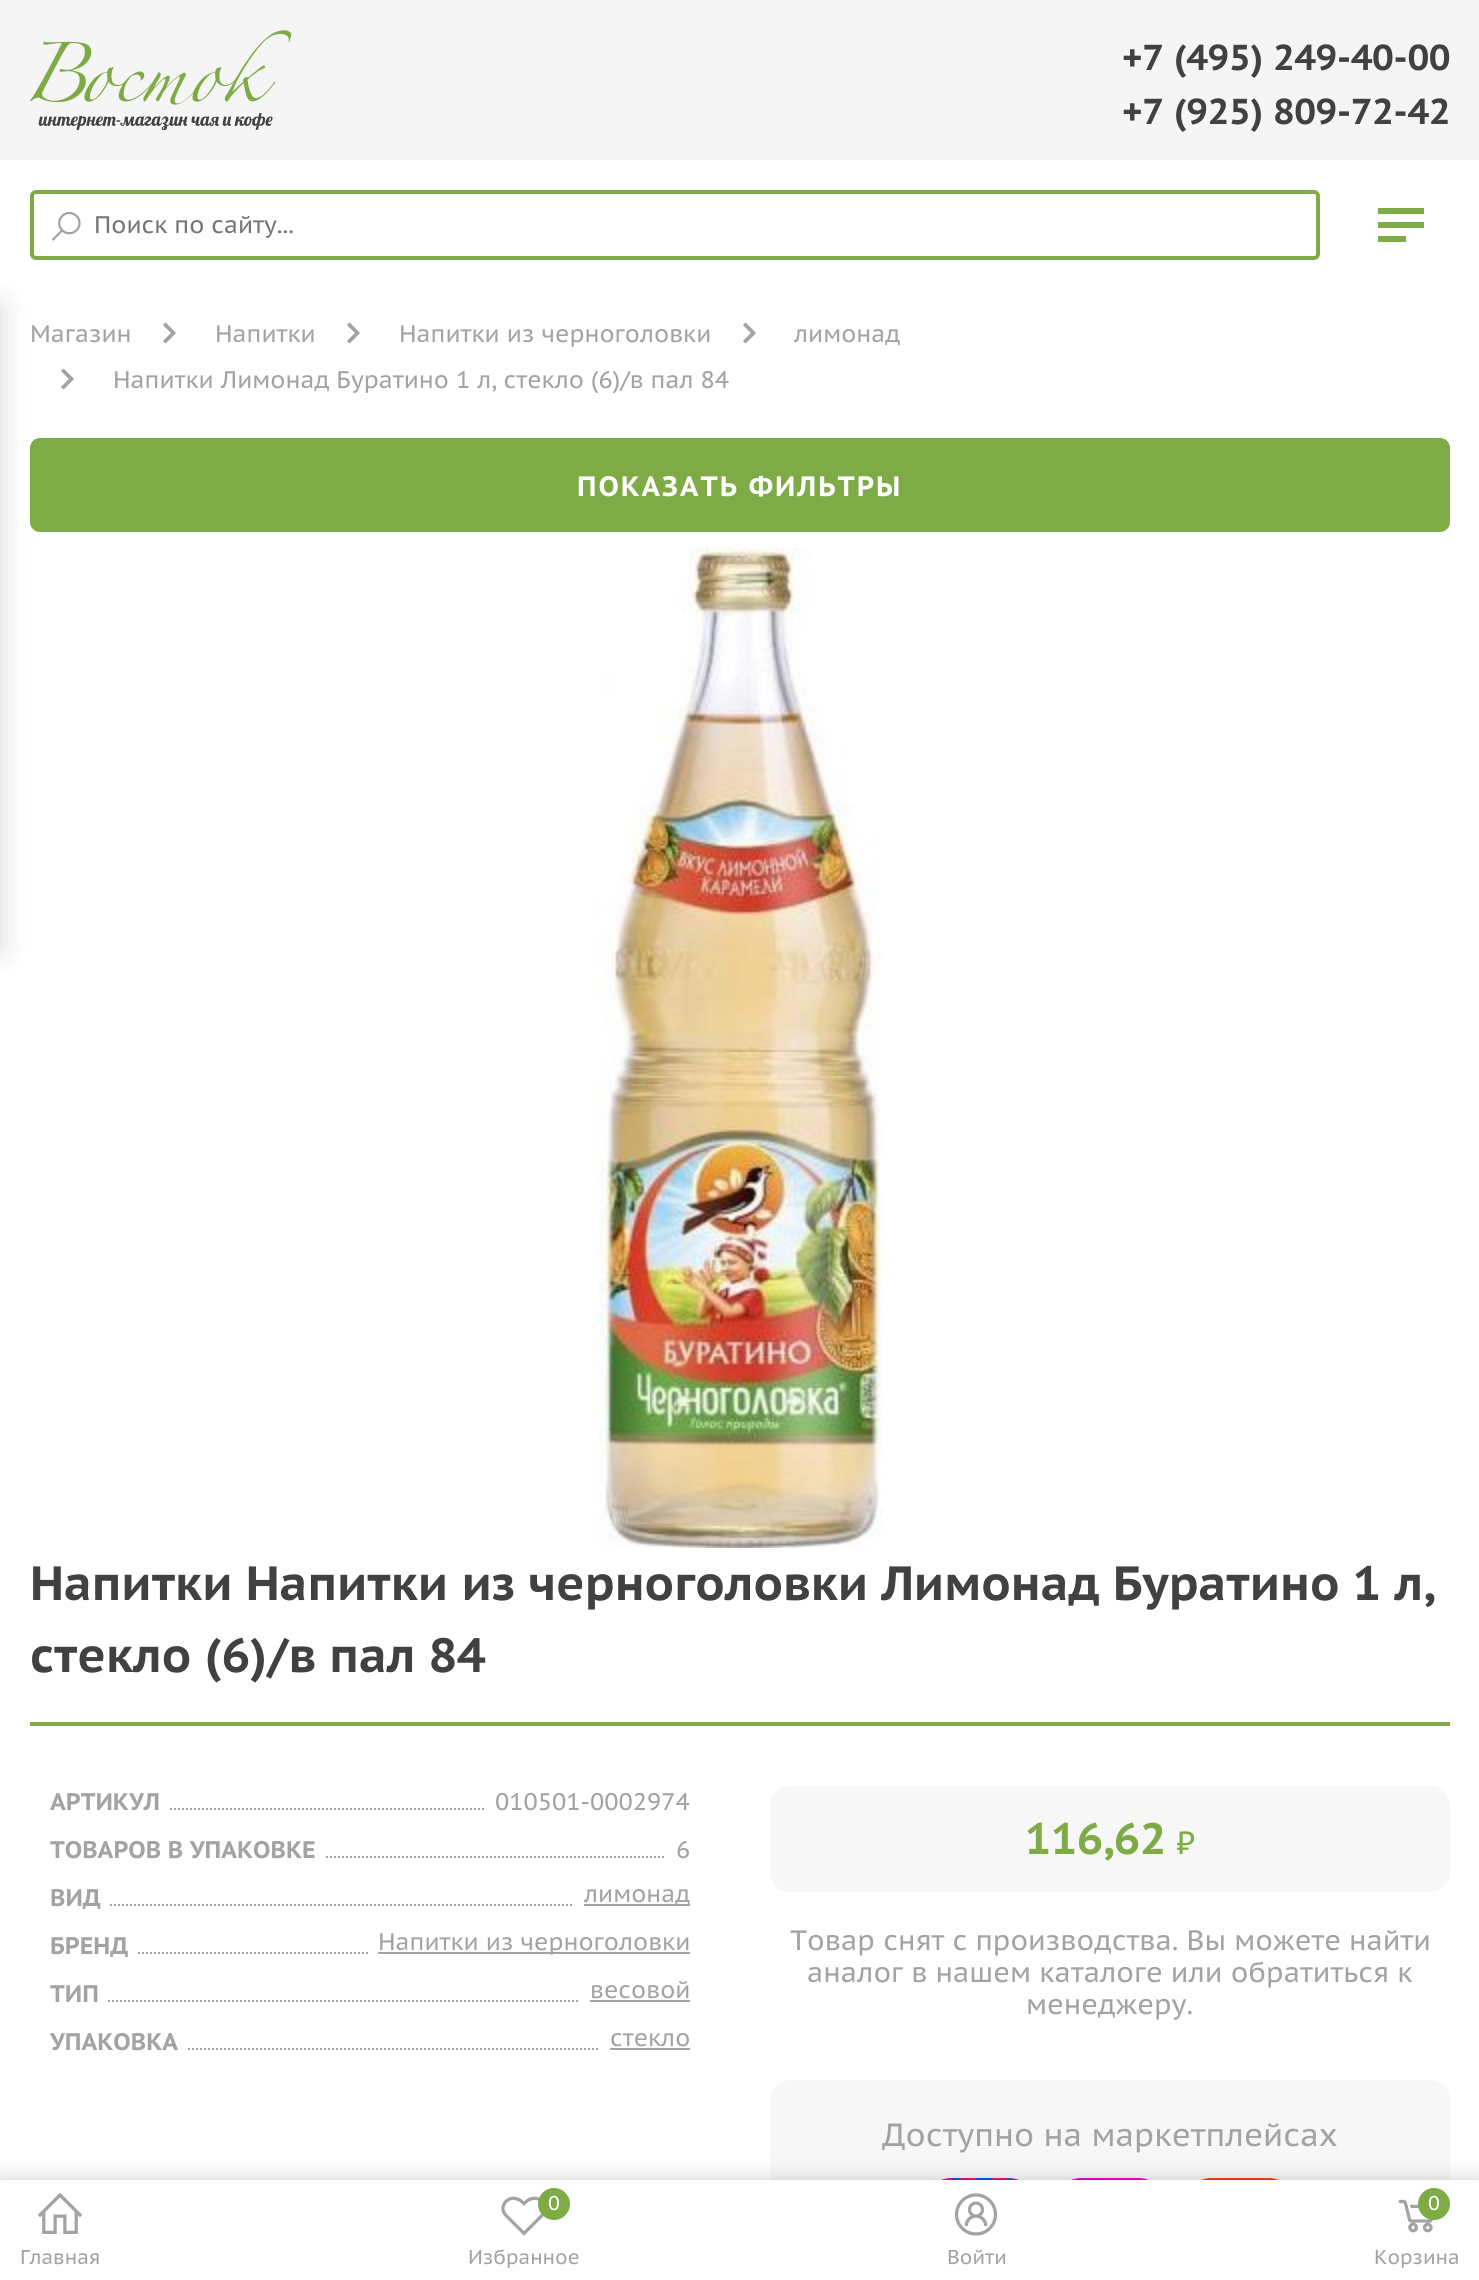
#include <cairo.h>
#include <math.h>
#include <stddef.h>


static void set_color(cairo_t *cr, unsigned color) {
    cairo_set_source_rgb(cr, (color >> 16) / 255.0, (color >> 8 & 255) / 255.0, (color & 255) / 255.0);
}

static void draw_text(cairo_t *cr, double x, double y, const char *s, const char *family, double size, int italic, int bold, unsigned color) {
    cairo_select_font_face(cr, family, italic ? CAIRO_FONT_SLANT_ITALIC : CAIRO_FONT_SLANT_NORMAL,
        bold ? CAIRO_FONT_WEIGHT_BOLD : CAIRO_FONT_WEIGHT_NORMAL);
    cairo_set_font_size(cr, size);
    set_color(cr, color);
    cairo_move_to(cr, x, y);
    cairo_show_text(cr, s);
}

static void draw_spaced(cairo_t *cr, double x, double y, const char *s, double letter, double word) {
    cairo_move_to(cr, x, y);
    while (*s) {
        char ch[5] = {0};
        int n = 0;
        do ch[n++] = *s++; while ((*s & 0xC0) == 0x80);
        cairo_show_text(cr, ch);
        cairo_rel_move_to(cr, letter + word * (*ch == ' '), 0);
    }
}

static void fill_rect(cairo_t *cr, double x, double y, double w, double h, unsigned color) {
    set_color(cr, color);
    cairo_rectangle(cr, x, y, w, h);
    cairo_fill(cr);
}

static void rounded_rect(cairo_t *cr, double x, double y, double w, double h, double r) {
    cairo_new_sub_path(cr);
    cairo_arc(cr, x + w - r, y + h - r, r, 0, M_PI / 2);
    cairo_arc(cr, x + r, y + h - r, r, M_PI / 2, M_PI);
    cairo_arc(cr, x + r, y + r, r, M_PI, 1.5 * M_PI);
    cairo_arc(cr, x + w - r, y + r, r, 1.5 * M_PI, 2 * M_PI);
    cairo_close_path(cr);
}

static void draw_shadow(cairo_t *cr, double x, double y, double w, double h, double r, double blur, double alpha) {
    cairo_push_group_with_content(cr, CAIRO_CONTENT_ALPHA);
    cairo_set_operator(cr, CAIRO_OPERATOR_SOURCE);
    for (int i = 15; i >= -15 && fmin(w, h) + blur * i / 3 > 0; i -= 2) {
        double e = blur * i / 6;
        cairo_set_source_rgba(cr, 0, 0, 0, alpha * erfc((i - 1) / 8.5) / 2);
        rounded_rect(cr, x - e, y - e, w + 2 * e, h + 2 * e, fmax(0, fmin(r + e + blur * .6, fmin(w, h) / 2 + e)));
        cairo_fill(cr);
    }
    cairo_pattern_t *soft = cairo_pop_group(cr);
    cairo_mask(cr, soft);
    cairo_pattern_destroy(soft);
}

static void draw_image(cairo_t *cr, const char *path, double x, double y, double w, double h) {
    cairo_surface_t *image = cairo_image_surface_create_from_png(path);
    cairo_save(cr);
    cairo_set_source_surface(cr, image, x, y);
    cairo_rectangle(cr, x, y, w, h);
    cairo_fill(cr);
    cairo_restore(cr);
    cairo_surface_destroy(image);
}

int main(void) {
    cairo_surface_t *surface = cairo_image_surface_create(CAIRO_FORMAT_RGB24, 1479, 2280);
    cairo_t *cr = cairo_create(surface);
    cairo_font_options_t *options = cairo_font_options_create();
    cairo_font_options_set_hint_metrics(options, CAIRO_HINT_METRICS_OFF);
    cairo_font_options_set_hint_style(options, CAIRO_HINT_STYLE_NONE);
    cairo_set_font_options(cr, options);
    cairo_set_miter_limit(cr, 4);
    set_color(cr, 0xFFFFFF);
    cairo_paint(cr);
    fill_rect(cr, 0, 0, 1479, 160, 0xF5F5F5);
    draw_image(cr, "assets/img1.png", 30, 30, 262, 100);
    draw_text(cr, 1122, 70, "+7 (495) 249-40-00", "PT Sans Caption", 36, 0, 1, 0x414141);
    draw_text(cr, 1122, 124, "+7 (925) 809-72-42", "PT Sans Caption", 36, 0, 1, 0x414141);
    rounded_rect(cr, 32, 192, 1286, 66, 4);
    set_color(cr, 0x7EAB46);
    cairo_set_line_width(cr, 4);
    cairo_stroke(cr);
    draw_image(cr, "assets/img2.png", 51, 211, 30, 30);
    draw_text(cr, 94, 233, "Поиск по сайту...", "PT Sans Caption", 24, 0, 0, 0x757575);
    fill_rect(cr, 1378, 208, 46, 6, 0x7EAB46);
    fill_rect(cr, 1378, 222, 46, 6, 0x7EAB46);
    fill_rect(cr, 1378, 236, 28, 6, 0x7EAB46);
    rounded_rect(cr, 32, 440, 1416, 90, 8);
    cairo_fill_preserve(cr);
    cairo_stroke(cr);
    set_color(cr, 0x000000);
    draw_shadow(cr, -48, 306, 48, 644, 0, 16, 0.15);
    draw_text(cr, 30, 342, "Магазин", "PT Sans Caption", 24, 0, 0, 0xA3A3A3);
    draw_image(cr, "assets/img3.png", 163, 322, 13, 22);
    draw_text(cr, 215, 342, "Напитки", "PT Sans Caption", 24, 0, 0, 0xA3A3A3);
    draw_image(cr, "assets/img3.png", 347, 322, 13, 22);
    draw_text(cr, 399, 342, "Напитки из черноголовки", "PT Sans Caption", 24, 0, 0, 0xA3A3A3);
    draw_image(cr, "assets/img3.png", 743, 322, 13, 22);
    draw_text(cr, 794, 342, "лимонад", "PT Sans Caption", 24, 0, 0, 0xA3A3A3);
    draw_image(cr, "assets/img3.png", 61, 368, 13, 22);
    draw_text(cr, 113, 388, "Напитки Лимонад Буратино 1 л, стекло (6)/в пал 84", "PT Sans Caption", 24, 0, 0, 0xA3A3A3);
    cairo_select_font_face(cr, "PT Sans Caption", CAIRO_FONT_SLANT_NORMAL, CAIRO_FONT_WEIGHT_BOLD);
    cairo_set_font_size(cr, 28);
    set_color(cr, 0xFFFFFF);
    draw_spaced(cr, 577, 496, "ПОКАЗАТЬ ФИЛЬТРЫ", 2, 0);
    draw_image(cr, "assets/img4.png", 592, 548, 291, 1000);
    fill_rect(cr, 30, 1722, 1420, 4, 0x7EAB46);
    draw_text(cr, 30, 1600, "Напитки Напитки из черноголовки Лимонад Буратино 1 л,", "PT Sans Caption", 48, 0, 1, 0x414141);
    draw_text(cr, 30, 1672, "стекло (6)/в пал 84", "PT Sans Caption", 48, 0, 1, 0x414141);
    draw_text(cr, 50, 1810, "АРТИКУЛ", "PT Sans Caption", 24, 0, 1, 0xA3A3A3);
    cairo_new_path(cr);
    cairo_move_to(cr, 170, 1809);
    cairo_line_to(cr, 486, 1809);
    cairo_set_line_width(cr, 2);
    cairo_set_dash(cr, (double[]){2, 2}, 2, 0);
    cairo_stroke(cr);
    draw_text(cr, 495, 1810, "010501-0002974", "PT Sans Caption", 24, 0, 0, 0xA3A3A3);
    draw_text(cr, 50, 1858, "ТОВАРОВ В УПАКОВКЕ", "PT Sans Caption", 24, 0, 1, 0xA3A3A3);
    cairo_new_path(cr);
    cairo_move_to(cr, 326, 1857);
    cairo_line_to(cr, 666, 1857);
    cairo_stroke(cr);
    draw_text(cr, 676, 1858, "6", "PT Sans Caption", 24, 0, 0, 0xA3A3A3);
    draw_text(cr, 50, 1906, "ВИД", "PT Sans Caption", 24, 0, 1, 0xA3A3A3);
    cairo_new_path(cr);
    cairo_move_to(cr, 110, 1905);
    cairo_line_to(cr, 574, 1905);
    cairo_stroke(cr);
    fill_rect(cr, 584, 1904, 106, 2, 0xA3A3A3);
    draw_text(cr, 584, 1902, "лимонад", "PT Sans Caption", 24, 0, 0, 0xA3A3A3);
    draw_text(cr, 50, 1954, "БРЕНД", "PT Sans Caption", 24, 0, 1, 0xA3A3A3);
    cairo_new_path(cr);
    cairo_move_to(cr, 138, 1953);
    cairo_line_to(cr, 368, 1953);
    cairo_stroke(cr);
    fill_rect(cr, 378, 1952, 312, 2, 0xA3A3A3);
    draw_text(cr, 378, 1950, "Напитки из черноголовки", "PT Sans Caption", 24, 0, 0, 0xA3A3A3);
    draw_text(cr, 50, 2002, "ТИП", "PT Sans Caption", 24, 0, 1, 0xA3A3A3);
    cairo_new_path(cr);
    cairo_move_to(cr, 108, 2001);
    cairo_line_to(cr, 580, 2001);
    cairo_stroke(cr);
    draw_text(cr, 590, 1998, "весовой", "PT Sans Caption", 24, 0, 0, 0xA3A3A3);
    fill_rect(cr, 590, 2000, 100, 2, 0xA3A3A3);
    draw_text(cr, 50, 2050, "УПАКОВКА", "PT Sans Caption", 24, 0, 1, 0xA3A3A3);
    cairo_new_path(cr);
    cairo_move_to(cr, 188, 2049);
    cairo_line_to(cr, 600, 2049);
    cairo_stroke(cr);
    draw_text(cr, 610, 2046, "стекло", "PT Sans Caption", 24, 0, 0, 0xA3A3A3);
    fill_rect(cr, 610, 2048, 80, 2, 0xA3A3A3);
    set_color(cr, 0xF7F7F7);
    rounded_rect(cr, 770, 1786, 680, 106, 20);
    cairo_fill(cr);
    draw_text(cr, 1025, 1854, "116,62", "PT Sans Caption", 44, 0, 1, 0x7EAB46);
    draw_text(cr, 1176, 1854, "₽", "PT Sans Caption", 32, 0, 0, 0x7EAB46);
    draw_text(cr, 790, 1950, "Товар снят с производства. Вы можете найти", "PT Sans Caption", 28, 0, 0, 0xA3A3A3);
    draw_text(cr, 807, 1982, "аналог в нашем каталоге или обратиться к", "PT Sans Caption", 28, 0, 0, 0xA3A3A3);
    draw_text(cr, 1026, 2014, "менеджеру.", "PT Sans Caption", 28, 0, 0, 0xA3A3A3);
    set_color(cr, 0xF7F7F7);
    rounded_rect(cr, 770, 2080, 680, 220, 20);
    cairo_fill(cr);
    draw_text(cr, 882, 2146, "Доступно на маркетплейсах", "PT Sans Caption", 32, 0, 0, 0xA3A3A3);
    draw_image(cr, "assets/img5.png", 941, 2178, 78, 2);
    draw_image(cr, "assets/img6.png", 1071, 2178, 78, 2);
    draw_image(cr, "assets/img7.png", 1201, 2178, 78, 2);
    set_color(cr, 0x000000);
    draw_shadow(cr, 0, 2180, 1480, 100, 0, 10, 0.2);
    fill_rect(cr, 0, 2180, 1479, 100, 0xFFFFFF);
    draw_image(cr, "assets/img8.png", 37, 2193, 46, 41);
    draw_text(cr, 20, 2264, "Главная", "PT Sans Caption", 20, 0, 0, 0xA3A3A3);
    draw_image(cr, "assets/img9.png", 501, 2196, 43, 40);
    set_color(cr, 0x7EAB46);
    cairo_arc(cr, 554, 2204, 16, 0, 2 * M_PI);
    cairo_fill(cr);
    draw_text(cr, 548, 2210, "0", "PT Sans Caption", 20, 0, 0, 0xFFFFFF);
    draw_text(cr, 468, 2264, "Избранное", "PT Sans Caption", 20, 0, 0, 0xA3A3A3);
    draw_image(cr, "assets/img10.png", 954, 2193, 44, 43);
    draw_text(cr, 947, 2264, "Войти", "PT Sans Caption", 20, 0, 0, 0xA3A3A3);
    draw_image(cr, "assets/img11.png", 1398, 2199, 36, 34);
    set_color(cr, 0x7EAB46);
    cairo_arc(cr, 1434, 2204, 16, 0, 2 * M_PI);
    cairo_fill(cr);
    draw_text(cr, 1428, 2210, "0", "PT Sans Caption", 20, 0, 0, 0xFFFFFF);
    draw_text(cr, 1374, 2264, "Корзина", "PT Sans Caption", 20, 0, 0, 0xA3A3A3);
    cairo_surface_write_to_png(surface, "output.png");
    cairo_font_options_destroy(options);
    cairo_destroy(cr);
    cairo_surface_destroy(surface);
    return 0;
}
